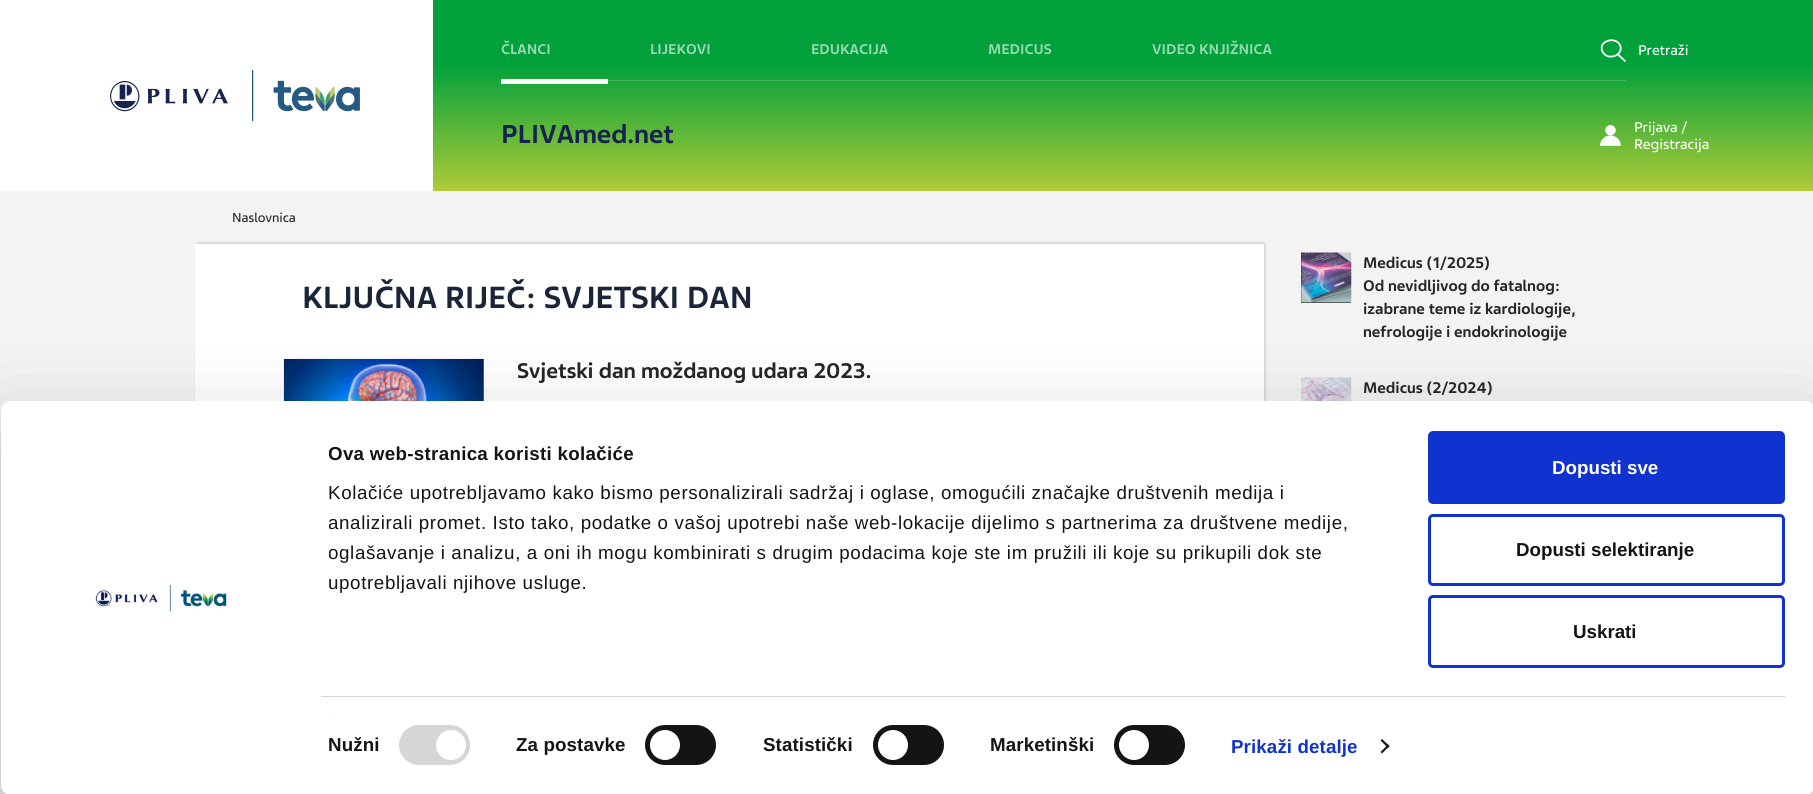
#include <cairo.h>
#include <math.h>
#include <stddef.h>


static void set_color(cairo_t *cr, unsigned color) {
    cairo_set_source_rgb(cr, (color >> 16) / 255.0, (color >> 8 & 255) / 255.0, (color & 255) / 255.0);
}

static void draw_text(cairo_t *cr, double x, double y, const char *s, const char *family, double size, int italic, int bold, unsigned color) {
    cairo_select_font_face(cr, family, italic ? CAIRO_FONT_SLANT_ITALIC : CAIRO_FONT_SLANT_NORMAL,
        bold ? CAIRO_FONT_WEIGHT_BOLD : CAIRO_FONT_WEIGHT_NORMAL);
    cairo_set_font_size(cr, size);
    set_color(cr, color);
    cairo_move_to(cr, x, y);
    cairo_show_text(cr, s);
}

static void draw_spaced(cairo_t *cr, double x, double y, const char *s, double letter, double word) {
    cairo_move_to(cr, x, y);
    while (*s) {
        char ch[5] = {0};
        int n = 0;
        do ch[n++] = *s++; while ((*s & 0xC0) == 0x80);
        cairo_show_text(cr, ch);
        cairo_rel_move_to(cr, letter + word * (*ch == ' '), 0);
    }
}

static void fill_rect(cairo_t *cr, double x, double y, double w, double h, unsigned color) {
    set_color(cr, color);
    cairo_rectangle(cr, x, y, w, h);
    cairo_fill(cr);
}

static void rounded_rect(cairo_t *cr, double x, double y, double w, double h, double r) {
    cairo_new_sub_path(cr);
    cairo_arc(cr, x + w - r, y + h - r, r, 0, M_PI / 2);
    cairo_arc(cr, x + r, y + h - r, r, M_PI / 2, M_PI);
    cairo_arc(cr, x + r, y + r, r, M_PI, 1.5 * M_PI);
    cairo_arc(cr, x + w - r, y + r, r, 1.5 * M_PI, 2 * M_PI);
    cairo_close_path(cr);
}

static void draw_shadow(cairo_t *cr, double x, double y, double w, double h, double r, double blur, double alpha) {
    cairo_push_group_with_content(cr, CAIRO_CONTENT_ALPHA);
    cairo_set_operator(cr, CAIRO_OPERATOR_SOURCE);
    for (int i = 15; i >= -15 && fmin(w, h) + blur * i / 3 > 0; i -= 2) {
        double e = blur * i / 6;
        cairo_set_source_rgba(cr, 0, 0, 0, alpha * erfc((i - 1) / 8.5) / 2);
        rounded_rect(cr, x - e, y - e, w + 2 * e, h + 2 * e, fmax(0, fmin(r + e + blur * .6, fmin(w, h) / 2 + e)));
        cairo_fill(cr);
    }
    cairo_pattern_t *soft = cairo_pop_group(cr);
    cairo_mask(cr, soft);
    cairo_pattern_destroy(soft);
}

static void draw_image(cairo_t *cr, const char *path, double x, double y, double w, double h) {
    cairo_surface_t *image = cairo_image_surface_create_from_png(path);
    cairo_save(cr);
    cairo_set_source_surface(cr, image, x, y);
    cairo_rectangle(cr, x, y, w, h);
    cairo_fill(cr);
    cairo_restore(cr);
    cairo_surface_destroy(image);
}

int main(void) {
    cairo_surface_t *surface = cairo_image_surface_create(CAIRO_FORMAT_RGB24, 1813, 794);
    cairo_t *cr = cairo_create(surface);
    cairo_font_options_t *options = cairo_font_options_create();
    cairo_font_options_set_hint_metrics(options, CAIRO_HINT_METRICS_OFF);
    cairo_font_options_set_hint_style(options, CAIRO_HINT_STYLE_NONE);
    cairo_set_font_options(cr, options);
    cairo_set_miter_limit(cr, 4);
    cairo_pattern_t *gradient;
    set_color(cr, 0xF3F3F3);
    cairo_paint(cr);
    fill_rect(cr, 0, 0, 433, 191, 0xFFFFFF);
    gradient = cairo_pattern_create_linear(1123, 0, 1123, 191);
    cairo_pattern_add_color_stop_rgba(gradient, 0.33, 0, 0.627, 0.231, 1);
    cairo_pattern_add_color_stop_rgba(gradient, 1, 0.686, 0.796, 0.216, 1);
    cairo_set_source(cr, gradient);
    cairo_pattern_destroy(gradient);
    cairo_rectangle(cr, 433, 0, 1380, 191);
    cairo_fill(cr);
    draw_image(cr, "assets/img1.png", 110, 70, 250, 51);
    fill_rect(cr, 608, 80, 1018, 1, 0x46B861);
    draw_text(cr, 501, 54, "ČLANCI", "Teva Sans", 15, 0, 1, 0x99D9B1);
    fill_rect(cr, 501, 79, 107, 5, 0xFFFFFF);
    draw_text(cr, 650, 54, "LIJEKOVI", "Teva Sans", 15, 0, 1, 0x99D9B1);
    draw_text(cr, 811, 54, "EDUKACIJA", "Teva Sans", 15, 0, 1, 0x99D9B1);
    draw_text(cr, 988, 54, "MEDICUS", "Teva Sans", 15, 0, 1, 0x99D9B1);
    draw_text(cr, 1152, 54, "VIDEO KNJIŽNICA", "Teva Sans", 15, 0, 1, 0x99D9B1);
    cairo_new_path(cr);
    cairo_move_to(cr, 1602.5, 51.5);
    cairo_curve_to(cr, 1607, 61.5, 1624.5, 55.5, 1620, 45);
    cairo_curve_to(cr, 1615, 35.5, 1597.5, 41.5, 1602.5, 51.5);
    cairo_close_path(cr);
    cairo_move_to(cr, 1618, 54.5);
    cairo_line_to(cr, 1625, 61);
    set_color(cr, 0xFFFFFF);
    cairo_set_line_width(cr, 1.8);
    cairo_set_line_cap(cr, CAIRO_LINE_CAP_ROUND);
    cairo_set_line_join(cr, CAIRO_LINE_JOIN_ROUND);
    cairo_stroke(cr);
    draw_text(cr, 1638, 55, "Pretraži", "Teva Sans", 15, 0, 0, 0xFFFFFF);
    draw_text(cr, 501, 143, "PLIVAmed.net", "Teva Sans", 27.5, 0, 1, 0x17234F);
    draw_image(cr, "assets/img2.png", 1600, 125, 21, 21);
    draw_text(cr, 1634, 132, "Prijava /", "Teva Sans", 15, 0, 0, 0xFFFFFF);
    draw_text(cr, 1634, 149, "Registracija", "Teva Sans", 15, 0, 0, 0xFFFFFF);
    draw_text(cr, 232, 222, "Naslovnica", "Teva Sans", 13.75, 0, 0, 0x262626);
    set_color(cr, 0x000000);
    draw_shadow(cr, 198, 244, 1066, 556, 0, 2, 0.3);
    fill_rect(cr, 195, 244, 1069, 157, 0xFFFFFF);
    draw_text(cr, 302, 308, "KLJUČNA RIJEČ: SVJETSKI DAN", "Teva Sans", 32.5, 0, 1, 0x1B253A);
    draw_image(cr, "assets/img3.png", 283, 358, 201, 43);
    draw_text(cr, 517, 378, "Svjetski dan moždanog udara 2023.", "Teva Sans", 22.5, 0, 1, 0x262626);
    fill_rect(cr, 1301, 253, 50, 50, 0x000000);
    draw_image(cr, "assets/img4.png", 1301, 252, 51, 51);
    draw_text(cr, 1363, 268, "Medicus (1/2025)", "Teva Sans", 16.25, 0, 1, 0x262626);
    draw_text(cr, 1363, 291, "Od nevidljivog do fatalnog:", "Teva Sans", 16.25, 0, 1, 0x262626);
    draw_text(cr, 1363, 314, "izabrane teme iz kardiologije,", "Teva Sans", 16.25, 0, 1, 0x262626);
    draw_text(cr, 1363, 337, "nefrologije i endokrinologije", "Teva Sans", 16.25, 0, 1, 0x262626);
    draw_image(cr, "assets/img5.png", 1301, 377, 51, 24);
    draw_text(cr, 1363, 393, "Medicus (2/2024)", "Teva Sans", 16.25, 0, 1, 0x262626);
    set_color(cr, 0x000000);
    draw_shadow(cr, 1, 439, 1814, 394, 10, 44, 0.3);
    set_color(cr, 0xFFFFFF);
    rounded_rect(cr, 1, 401, 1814, 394, 10);
    cairo_fill(cr);
    draw_image(cr, "assets/img6.png", 95, 585, 132, 27);
    cairo_save(cr);
    cairo_rectangle(cr, 329, 439, 1062, 221);
    cairo_clip(cr);
    cairo_select_font_face(cr, "Liberation Sans", CAIRO_FONT_SLANT_NORMAL, CAIRO_FONT_WEIGHT_BOLD);
    cairo_set_font_size(cr, 18.75);
    set_color(cr, 0x141414);
    draw_spaced(cr, 328, 460, "Ova web-stranica koristi kolačiće", 0.3, 0);
    cairo_restore(cr);
    cairo_select_font_face(cr, "Liberation Sans", CAIRO_FONT_SLANT_NORMAL, CAIRO_FONT_WEIGHT_NORMAL);
    cairo_set_font_size(cr, 18.75);
    set_color(cr, 0x141414);
    draw_spaced(cr, 328, 499, "Kolačiće upotrebljavamo kako bismo personalizirali sadržaj i oglase, omogućili značajke društvenih medija i", 0.62, 0);
    cairo_save(cr);
    cairo_rectangle(cr, 329, 439, 1062, 221);
    cairo_clip(cr);
    draw_spaced(cr, 328, 529, "analizirali promet. Isto tako, podatke o vašoj upotrebi naše web-lokacije dijelimo s partnerima za društvene medije,", 0.62, 0);
    draw_spaced(cr, 328, 559, "oglašavanje i analizu, a oni ih mogu kombinirati s drugim podacima koje ste im pružili ili koje su prikupili dok ste", 0.62, 0);
    draw_spaced(cr, 328, 589, "upotrebljavali njihove usluge.", 0.62, 0);
    cairo_restore(cr);
    fill_rect(cr, 321, 696, 1464, 1, 0xD6D6D6);
    fill_rect(cr, 328, 715, 1, 1, 0xE5E5E5);
    cairo_select_font_face(cr, "Liberation Sans", CAIRO_FONT_SLANT_NORMAL, CAIRO_FONT_WEIGHT_BOLD);
    set_color(cr, 0x141414);
    draw_spaced(cr, 328, 751, "Nužni", 0.1, 0);
    set_color(cr, 0xD6D6D6);
    rounded_rect(cr, 399, 725, 71, 40, 20);
    cairo_fill(cr);
    set_color(cr, 0xFFFFFF);
    cairo_arc(cr, 451, 745, 15, 0, 2 * M_PI);
    cairo_fill(cr);
    set_color(cr, 0x141414);
    draw_spaced(cr, 516, 751, "Za postavke", 0.1, 0);
    rounded_rect(cr, 645, 725, 71, 40, 20);
    cairo_fill(cr);
    set_color(cr, 0xFFFFFF);
    cairo_arc(cr, 665, 745, 15, 0, 2 * M_PI);
    cairo_fill(cr);
    set_color(cr, 0x141414);
    draw_spaced(cr, 763, 751, "Statistički", 0.1, 0);
    rounded_rect(cr, 873, 725, 71, 40, 20);
    cairo_fill(cr);
    set_color(cr, 0xFFFFFF);
    cairo_arc(cr, 893, 745, 15, 0, 2 * M_PI);
    cairo_fill(cr);
    set_color(cr, 0x141414);
    draw_spaced(cr, 990, 751, "Marketinški", 0.1, 0);
    rounded_rect(cr, 1114, 725, 71, 40, 20);
    cairo_fill(cr);
    set_color(cr, 0xFFFFFF);
    cairo_arc(cr, 1134, 745, 15, 0, 2 * M_PI);
    cairo_fill(cr);
    set_color(cr, 0x1032CF);
    draw_spaced(cr, 1231, 753, "Prikaži detalje", 0.1, 0);
    set_color(cr, 0x141414);
    cairo_new_path(cr);
    cairo_move_to(cr, 1382, 739);
    cairo_line_to(cr, 1389.5, 746);
    cairo_line_to(cr, 1388, 748);
    cairo_line_to(cr, 1380.5, 740.5);
    cairo_close_path(cr);
    cairo_fill(cr);
    cairo_new_path(cr);
    cairo_move_to(cr, 1388, 744.5);
    cairo_line_to(cr, 1389.5, 746);
    cairo_line_to(cr, 1382, 753.5);
    cairo_line_to(cr, 1380.5, 752);
    cairo_close_path(cr);
    cairo_fill(cr);
    set_color(cr, 0x1032CF);
    rounded_rect(cr, 1429.5, 432.5, 354, 70, 3.5);
    cairo_fill_preserve(cr);
    cairo_set_line_width(cr, 3);
    cairo_set_line_cap(cr, CAIRO_LINE_CAP_BUTT);
    cairo_set_line_join(cr, CAIRO_LINE_JOIN_MITER);
    cairo_stroke(cr);
    draw_text(cr, 1552, 474, "Dopusti sve", "Liberation Sans", 18.75, 0, 1, 0xFFFFFF);
    rounded_rect(cr, 1429.5, 515.5, 354, 69, 3.5);
    set_color(cr, 0x1032CF);
    cairo_stroke(cr);
    draw_text(cr, 1516, 556, "Dopusti selektiranje", "Liberation Sans", 18.75, 0, 1, 0x141414);
    rounded_rect(cr, 1429.5, 596.5, 354, 70, 3.5);
    set_color(cr, 0x1032CF);
    cairo_stroke(cr);
    draw_text(cr, 1573, 638, "Uskrati", "Liberation Sans", 18.75, 0, 1, 0x141414);
    cairo_surface_write_to_png(surface, "output.png");
    cairo_font_options_destroy(options);
    cairo_destroy(cr);
    cairo_surface_destroy(surface);
    return 0;
}
